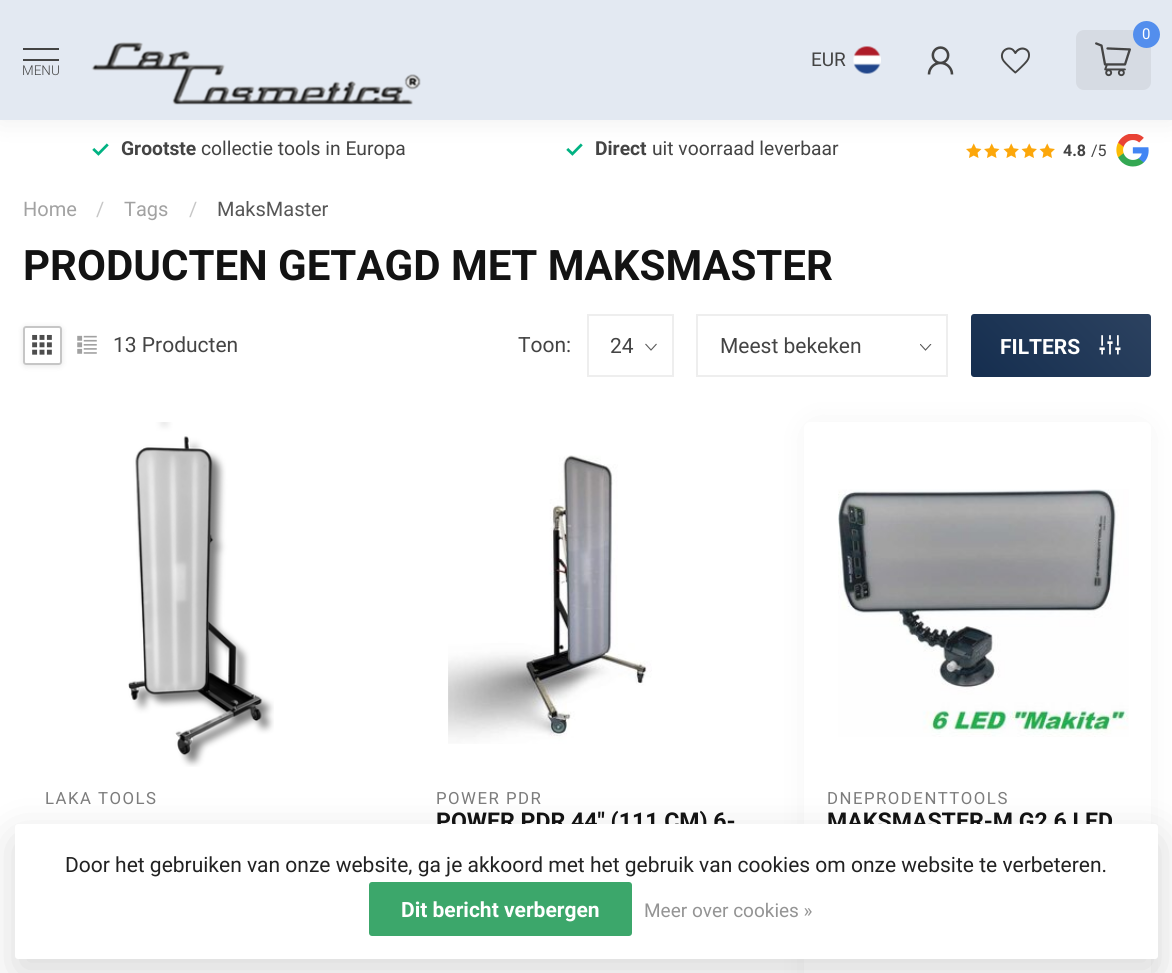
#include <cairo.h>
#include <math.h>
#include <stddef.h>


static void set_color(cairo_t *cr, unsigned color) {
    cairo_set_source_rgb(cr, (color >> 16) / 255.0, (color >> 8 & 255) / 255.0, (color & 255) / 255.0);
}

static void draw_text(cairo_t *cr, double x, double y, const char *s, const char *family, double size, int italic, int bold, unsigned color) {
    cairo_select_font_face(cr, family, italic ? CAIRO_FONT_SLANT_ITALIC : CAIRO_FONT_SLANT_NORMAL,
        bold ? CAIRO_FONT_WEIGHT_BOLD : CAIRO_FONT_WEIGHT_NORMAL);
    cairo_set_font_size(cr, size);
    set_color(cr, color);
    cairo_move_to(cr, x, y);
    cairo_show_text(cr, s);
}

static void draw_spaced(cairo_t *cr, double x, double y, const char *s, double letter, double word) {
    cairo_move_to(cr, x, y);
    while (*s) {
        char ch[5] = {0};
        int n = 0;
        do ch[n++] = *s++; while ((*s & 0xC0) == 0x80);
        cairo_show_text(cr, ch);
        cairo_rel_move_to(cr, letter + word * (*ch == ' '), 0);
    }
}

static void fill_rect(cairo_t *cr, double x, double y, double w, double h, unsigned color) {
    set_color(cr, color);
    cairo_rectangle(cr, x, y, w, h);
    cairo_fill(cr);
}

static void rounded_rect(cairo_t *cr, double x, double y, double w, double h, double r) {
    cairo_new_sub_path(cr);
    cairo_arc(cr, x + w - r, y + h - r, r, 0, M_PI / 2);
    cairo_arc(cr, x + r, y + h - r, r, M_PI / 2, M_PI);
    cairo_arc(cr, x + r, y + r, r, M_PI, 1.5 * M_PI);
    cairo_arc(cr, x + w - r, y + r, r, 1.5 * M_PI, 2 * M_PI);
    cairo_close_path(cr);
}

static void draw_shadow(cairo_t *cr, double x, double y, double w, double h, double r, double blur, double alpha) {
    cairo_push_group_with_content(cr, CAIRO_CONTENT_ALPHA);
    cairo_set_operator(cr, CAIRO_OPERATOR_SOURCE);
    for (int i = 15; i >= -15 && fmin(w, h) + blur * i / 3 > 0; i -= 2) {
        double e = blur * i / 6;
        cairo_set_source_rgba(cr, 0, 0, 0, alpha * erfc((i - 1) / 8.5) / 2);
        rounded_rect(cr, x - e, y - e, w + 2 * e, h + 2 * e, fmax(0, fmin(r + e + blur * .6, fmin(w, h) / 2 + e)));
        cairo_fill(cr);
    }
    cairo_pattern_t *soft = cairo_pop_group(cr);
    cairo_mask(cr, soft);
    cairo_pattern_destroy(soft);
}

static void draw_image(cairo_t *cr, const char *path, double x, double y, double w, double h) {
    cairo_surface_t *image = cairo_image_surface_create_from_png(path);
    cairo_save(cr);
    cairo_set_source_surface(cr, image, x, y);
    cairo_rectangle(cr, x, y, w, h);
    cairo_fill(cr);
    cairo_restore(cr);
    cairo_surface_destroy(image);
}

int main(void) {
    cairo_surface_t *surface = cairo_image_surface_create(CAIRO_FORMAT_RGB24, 1172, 973);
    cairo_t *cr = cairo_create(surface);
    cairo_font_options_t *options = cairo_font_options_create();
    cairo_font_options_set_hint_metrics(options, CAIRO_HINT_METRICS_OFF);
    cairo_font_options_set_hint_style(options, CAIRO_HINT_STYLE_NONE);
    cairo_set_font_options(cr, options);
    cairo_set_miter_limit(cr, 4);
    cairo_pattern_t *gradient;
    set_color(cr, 0xFFFFFF);
    cairo_paint(cr);
    draw_image(cr, "assets/img6.png", 92, 143, 17, 13);
    draw_image(cr, "assets/img6.png", 566, 143, 17, 13);
    draw_image(cr, "assets/img7.png", 966, 143, 16, 15);
    draw_image(cr, "assets/img7.png", 984, 143, 16, 15);
    draw_image(cr, "assets/img8.png", 1003, 143, 16, 15);
    draw_image(cr, "assets/img8.png", 1021, 143, 16, 15);
    draw_image(cr, "assets/img8.png", 1039, 143, 16, 15);
    draw_image(cr, "assets/img9.png", 1116, 134, 33, 33);
    set_color(cr, 0x000000);
    draw_shadow(cr, 0, 0, 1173, 120, 0, 15, 0.07);
    fill_rect(cr, 0, 0, 1172, 120, 0xE3E9F2);
    set_color(cr, 0xD6DBE3);
    rounded_rect(cr, 1076, 30, 75, 60, 8);
    cairo_fill(cr);
    set_color(cr, 0x538EED);
    cairo_arc(cr, 1146.5, 34.5, 13.5, 0, 2 * M_PI);
    cairo_fill(cr);
    draw_text(cr, 1142, 39, "0", "Roboto", 15, 0, 0, 0xFFFFFF);
    draw_image(cr, "assets/img1.png", 1095, 42, 36, 35);
    draw_text(cr, 811, 66, "EUR", "Roboto", 19, 0, 0, 0x444444);
    draw_image(cr, "assets/img2.png", 853, 46, 28, 28);
    draw_image(cr, "assets/img3.png", 927, 46, 27, 29);
    draw_image(cr, "assets/img4.png", 1000, 47, 30, 27);
    fill_rect(cr, 23, 48, 36, 2, 0x444444);
    fill_rect(cr, 23, 59, 36, 2, 0x444444);
    draw_text(cr, 22, 75, "MENU", "Roboto Light", 13.5, 0, 0, 0x444444);
    draw_image(cr, "assets/img5.png", 91, 42, 330, 63);
    draw_text(cr, 121, 155, "Grootste", "Roboto", 19.25, 0, 1, 0x444444);
    draw_text(cr, 201, 155, "collectie tools in Europa", "Roboto", 19.25, 0, 0, 0x444444);
    draw_text(cr, 595, 155, "Direct", "Roboto", 19.25, 0, 1, 0x444444);
    draw_text(cr, 652, 155, "uit voorraad leverbaar", "Roboto", 19.25, 0, 0, 0x444444);
    draw_text(cr, 1063, 156, "4.8", "Roboto", 16, 0, 1, 0x444444);
    draw_text(cr, 1091, 156, "/5", "Roboto", 16, 0, 0, 0x444444);
    draw_text(cr, 23, 216, "Home", "Roboto", 20, 0, 0, 0xA2A2A2);
    draw_text(cr, 96, 216, "/", "Roboto", 20, 0, 0, 0xC7C7C7);
    draw_text(cr, 124, 216, "Tags", "Roboto", 20, 0, 0, 0xA2A2A2);
    draw_text(cr, 189, 216, "/", "Roboto", 20, 0, 0, 0xC7C7C7);
    draw_text(cr, 217, 216, "MaksMaster", "Roboto", 20, 0, 0, 0x575757);
    draw_text(cr, 23, 280, "PRODUCTEN GETAGD MET MAKSMASTER", "Roboto", 42, 0, 1, 0x131313);
    cairo_save(cr);
    cairo_set_fill_rule(cr, CAIRO_FILL_RULE_EVEN_ODD);
    cairo_new_path(cr);
    cairo_move_to(cr, 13, 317);
    cairo_line_to(cr, 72, 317);
    cairo_line_to(cr, 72, 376);
    cairo_line_to(cr, 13, 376);
    cairo_close_path(cr);
    cairo_move_to(cr, 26, 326);
    cairo_line_to(cr, 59, 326);
    cairo_curve_to(cr, 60.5, 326, 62, 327.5, 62, 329);
    cairo_line_to(cr, 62, 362);
    cairo_curve_to(cr, 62, 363.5, 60.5, 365, 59, 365);
    cairo_line_to(cr, 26, 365);
    cairo_curve_to(cr, 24.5, 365, 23, 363.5, 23, 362);
    cairo_line_to(cr, 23, 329);
    cairo_curve_to(cr, 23, 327.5, 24.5, 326, 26, 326);
    cairo_close_path(cr);
    cairo_clip(cr);
    set_color(cr, 0x000000);
    draw_shadow(cr, 23, 327, 39, 39, 3, 3, 0.1);
    cairo_restore(cr);
    rounded_rect(cr, 24, 327, 37, 37, 2);
    set_color(cr, 0xC6C6C6);
    cairo_stroke(cr);
    draw_image(cr, "assets/img10.png", 32, 334, 20, 21);
    draw_image(cr, "assets/img11.png", 77, 335, 20, 19);
    draw_text(cr, 113, 352, "13 Producten", "Roboto", 21, 0, 0, 0x444444);
    draw_text(cr, 518, 352, "Toon:", "Roboto", 21, 0, 0, 0x444444);
    cairo_new_path(cr);
    cairo_move_to(cr, 656.5, 344);
    cairo_line_to(cr, 651, 350);
    cairo_line_to(cr, 645.5, 344);
    set_color(cr, 0x595959);
    cairo_set_line_width(cr, 1.1);
    cairo_stroke(cr);
    cairo_rectangle(cr, 588, 315, 85, 61);
    set_color(cr, 0xEEEEEE);
    cairo_set_line_width(cr, 2);
    cairo_stroke(cr);
    draw_text(cr, 610, 353, "24", "Roboto", 21, 0, 0, 0x444444);
    cairo_save(cr);
    cairo_rectangle(cr, 920, 344, 12, 7);
    cairo_clip(cr);
    cairo_new_path(cr);
    cairo_move_to(cr, 931, 344);
    cairo_line_to(cr, 925.5, 350);
    cairo_line_to(cr, 920, 344);
    set_color(cr, 0x595959);
    cairo_set_line_width(cr, 1.1);
    cairo_stroke(cr);
    cairo_restore(cr);
    cairo_rectangle(cr, 697, 315, 250, 61);
    set_color(cr, 0xEEEEEE);
    cairo_stroke(cr);
    draw_text(cr, 720, 353, "Meest bekeken", "Roboto", 21, 0, 0, 0x444444);
    gradient = cairo_pattern_create_linear(1000, 406, 1121, 284);
    cairo_pattern_add_color_stop_rgba(gradient, 0, 0.082, 0.18, 0.31, 1);
    cairo_pattern_add_color_stop_rgba(gradient, 1, 0.173, 0.259, 0.376, 1);
    cairo_set_source(cr, gradient);
    cairo_pattern_destroy(gradient);
    rounded_rect(cr, 971, 314, 180, 63, 3);
    cairo_fill(cr);
    draw_text(cr, 1000, 354, "FILTERS", "Roboto", 21, 0, 1, 0xFFFFFF);
    draw_image(cr, "assets/img12.png", 1099, 335, 22, 20);
    draw_image(cr, "assets/img13.png", 128, 422, 146, 345);
    cairo_select_font_face(cr, "Roboto", CAIRO_FONT_SLANT_NORMAL, CAIRO_FONT_WEIGHT_NORMAL);
    cairo_set_font_size(cr, 16.75);
    set_color(cr, 0x7C7C7C);
    draw_spaced(cr, 45, 804, "LAKA TOOLS", 1.5, 0);
    draw_image(cr, "assets/img14.png", 448, 455, 204, 289);
    draw_spaced(cr, 436, 804, "POWER PDR", 1.5, 0);
    draw_text(cr, 436, 829, "POWER PDR 44\" (111 CM) 6-", "Roboto", 23.1, 0, 1, 0x131313);
    set_color(cr, 0x000000);
    draw_shadow(cr, 813, 431, 329, 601, 0, 19.5, 0.07);
    set_color(cr, 0xFFFFFF);
    rounded_rect(cr, 804, 422, 347, 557, 6);
    cairo_fill(cr);
    draw_image(cr, "assets/img15.png", 838, 489, 291, 248);
    cairo_select_font_face(cr, "Roboto", CAIRO_FONT_SLANT_NORMAL, CAIRO_FONT_WEIGHT_NORMAL);
    cairo_set_font_size(cr, 16.75);
    set_color(cr, 0x7C7C7C);
    draw_spaced(cr, 827, 804, "DNEPRODENTTOOLS", 1.5, 0);
    draw_text(cr, 827, 829, "MAKSMASTER-M G2 6 LED", "Roboto", 23.1, 0, 1, 0x131313);
    set_color(cr, 0x000000);
    draw_shadow(cr, 15, 839, 1143, 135, 3, 22.5, 0.15);
    set_color(cr, 0xFFFFFF);
    rounded_rect(cr, 15, 824, 1143, 135, 3);
    cairo_fill(cr);
    draw_text(cr, 65, 872, "Door het gebruiken van onze website, ga je akkoord met het gebruik van cookies om onze website te verbeteren.", "Roboto", 21, 0, 0, 0x222222);
    set_color(cr, 0x3CA76B);
    rounded_rect(cr, 369, 882, 263, 54, 3);
    cairo_fill(cr);
    draw_text(cr, 401, 917, "Dit bericht verbergen", "Roboto", 21, 0, 1, 0xFFFFFF);
    draw_text(cr, 644, 917, "Meer over cookies »", "Roboto", 19, 0, 0, 0x949494);
    cairo_surface_write_to_png(surface, "output.png");
    cairo_font_options_destroy(options);
    cairo_destroy(cr);
    cairo_surface_destroy(surface);
    return 0;
}
